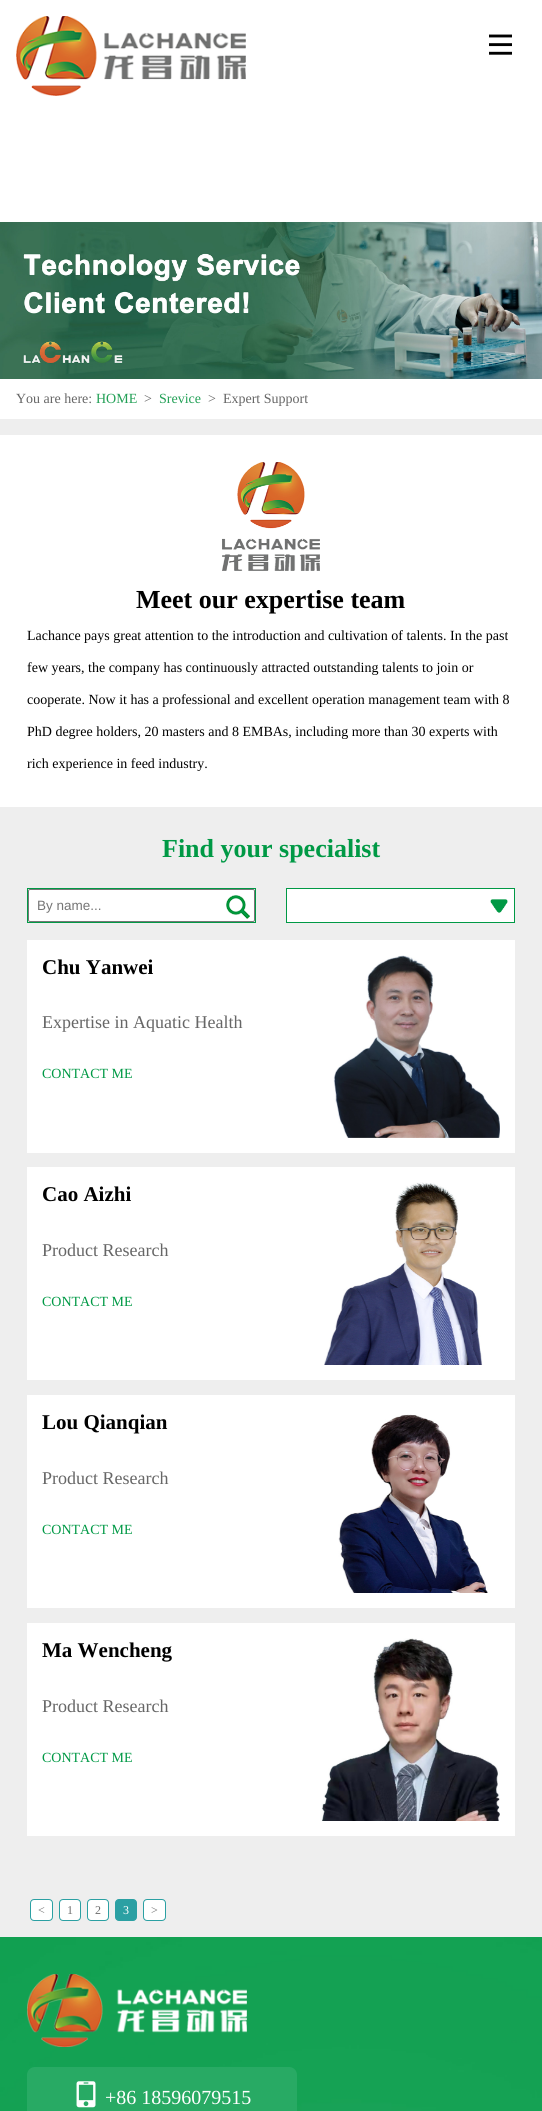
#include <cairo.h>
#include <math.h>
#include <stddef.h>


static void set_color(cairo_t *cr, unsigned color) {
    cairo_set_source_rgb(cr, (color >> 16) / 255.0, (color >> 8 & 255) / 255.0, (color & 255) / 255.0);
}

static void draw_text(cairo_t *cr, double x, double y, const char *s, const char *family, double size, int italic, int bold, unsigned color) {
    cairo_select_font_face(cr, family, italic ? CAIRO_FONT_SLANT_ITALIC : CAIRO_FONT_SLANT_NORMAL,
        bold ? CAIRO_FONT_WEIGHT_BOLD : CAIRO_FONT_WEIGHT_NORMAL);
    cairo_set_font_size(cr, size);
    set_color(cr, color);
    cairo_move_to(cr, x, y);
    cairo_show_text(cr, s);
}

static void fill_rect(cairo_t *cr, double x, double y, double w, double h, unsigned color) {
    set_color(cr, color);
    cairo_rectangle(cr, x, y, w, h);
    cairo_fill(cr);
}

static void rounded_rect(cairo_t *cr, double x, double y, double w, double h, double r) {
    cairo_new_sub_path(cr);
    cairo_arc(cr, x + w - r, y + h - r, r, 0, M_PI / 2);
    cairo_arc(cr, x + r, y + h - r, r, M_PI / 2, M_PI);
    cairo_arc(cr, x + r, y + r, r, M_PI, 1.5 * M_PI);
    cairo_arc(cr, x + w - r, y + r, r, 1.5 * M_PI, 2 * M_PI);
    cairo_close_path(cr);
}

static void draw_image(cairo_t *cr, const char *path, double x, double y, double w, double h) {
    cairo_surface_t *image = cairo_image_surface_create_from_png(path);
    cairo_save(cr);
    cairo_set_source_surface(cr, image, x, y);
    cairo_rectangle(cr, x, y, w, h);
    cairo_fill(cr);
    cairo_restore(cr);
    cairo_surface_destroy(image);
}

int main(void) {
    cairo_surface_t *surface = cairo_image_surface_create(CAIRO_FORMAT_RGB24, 542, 2111);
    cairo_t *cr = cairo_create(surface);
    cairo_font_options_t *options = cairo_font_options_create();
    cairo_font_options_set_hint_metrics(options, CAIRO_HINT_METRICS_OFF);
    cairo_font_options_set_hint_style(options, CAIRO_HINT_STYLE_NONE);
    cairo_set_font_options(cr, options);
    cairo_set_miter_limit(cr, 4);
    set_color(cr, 0xFFFFFF);
    cairo_paint(cr);
    draw_image(cr, "assets/img1.png", 16, 16, 230, 80);
    draw_image(cr, "assets/img2.png", 489, 34, 23, 21);
    draw_image(cr, "assets/img3.png", 0, 222, 542, 157);
    draw_text(cr, 16, 403, "You are here:", "Liberation Serif", 14, 0, 0, 0x666666);
    draw_text(cr, 96, 403, "HOME", "Liberation Serif", 14, 0, 0, 0x22A056);
    draw_text(cr, 144, 403, ">", "Liberation Serif", 14, 0, 0, 0x666666);
    draw_text(cr, 159, 403, "Srevice", "Liberation Serif", 14, 0, 0, 0x22A056);
    draw_text(cr, 208, 403, ">  Expert Support", "Liberation Serif", 14, 0, 0, 0x666666);
    fill_rect(cr, 0, 419, 542, 1518, 0xEEEEEE);
    fill_rect(cr, 0, 435, 542, 372, 0xFFFFFF);
    draw_image(cr, "assets/img4.png", 222, 462, 98, 109);
    draw_text(cr, 136, 608, "Meet our expertise team", "Liberation Serif", 26, 0, 1, 0x000000);
    draw_text(cr, 27, 640, "Lachance pays great attention to the introduction and cultivation of talents. In the past", "Liberation Serif", 14, 0, 0, 0x000000);
    draw_text(cr, 27, 672, "few years, the company has continuously attracted outstanding talents to join or", "Liberation Serif", 14, 0, 0, 0x000000);
    draw_text(cr, 27, 704, "cooperate. Now it has a professional and excellent operation management team with 8", "Liberation Serif", 14, 0, 0, 0x000000);
    draw_text(cr, 27, 736, "PhD degree holders, 20 masters and 8 EMBAs, including more than 30 experts with", "Liberation Serif", 14, 0, 0, 0x000000);
    draw_text(cr, 27, 768, "rich experience in feed industry.", "Liberation Serif", 14, 0, 0, 0x000000);
    draw_text(cr, 162, 857, "Find your specialist", "Liberation Serif", 26, 0, 1, 0x009945);
    set_color(cr, 0xFFFFFF);
    cairo_rectangle(cr, 27.5, 888.5, 228, 34);
    cairo_fill_preserve(cr);
    set_color(cr, 0x009945);
    cairo_set_line_width(cr, 1);
    cairo_stroke(cr);
    rounded_rect(cr, 28.5, 889.5, 226, 32, 1.5);
    set_color(cr, 0x767676);
    cairo_stroke(cr);
    draw_text(cr, 37, 910, "By name...", "Liberation Sans", 13.5, 0, 0, 0x757575);
    draw_image(cr, "assets/img5.png", 226, 895, 24, 24);
    fill_rect(cr, 287, 889, 227, 33, 0xFFFFFF);
    draw_image(cr, "assets/img6.png", 490, 899, 18, 14);
    cairo_rectangle(cr, 286.5, 888.5, 228, 34);
    set_color(cr, 0x009945);
    cairo_stroke(cr);
    fill_rect(cr, 27, 940, 488, 213, 0xFFFFFF);
    draw_text(cr, 42, 974, "Chu Yanwei", "Liberation Serif", 21, 0, 1, 0x000000);
    draw_text(cr, 42, 1028, "Expertise in Aquatic Health", "Liberation Serif", 18, 0, 0, 0x666666);
    draw_text(cr, 42, 1078, "CONTACT ME", "Liberation Serif", 14, 0, 0, 0x009945);
    draw_image(cr, "assets/img7.png", 333, 955, 167, 183);
    fill_rect(cr, 27, 1167, 488, 213, 0xFFFFFF);
    draw_text(cr, 42, 1201, "Cao Aizhi", "Liberation Serif", 21, 0, 1, 0x000000);
    draw_text(cr, 42, 1256, "Product Research", "Liberation Serif", 18, 0, 0, 0x666666);
    draw_text(cr, 42, 1306, "CONTACT ME", "Liberation Serif", 14, 0, 0, 0x009945);
    draw_image(cr, "assets/img8.png", 324, 1182, 159, 183);
    fill_rect(cr, 27, 1395, 488, 213, 0xFFFFFF);
    draw_text(cr, 42, 1429, "Lou Qianqian", "Liberation Serif", 21, 0, 1, 0x000000);
    draw_text(cr, 42, 1484, "Product Research", "Liberation Serif", 18, 0, 0, 0x666666);
    draw_text(cr, 42, 1534, "CONTACT ME", "Liberation Serif", 14, 0, 0, 0x009945);
    draw_image(cr, "assets/img9.png", 338, 1414, 150, 179);
    fill_rect(cr, 27, 1623, 488, 213, 0xFFFFFF);
    draw_text(cr, 42, 1657, "Ma Wencheng", "Liberation Serif", 21, 0, 1, 0x000000);
    draw_text(cr, 42, 1712, "Product Research", "Liberation Serif", 18, 0, 0, 0x666666);
    draw_text(cr, 42, 1762, "CONTACT ME", "Liberation Serif", 14, 0, 0, 0x009945);
    draw_image(cr, "assets/img10.png", 321, 1638, 179, 183);
    set_color(cr, 0xFFFFFF);
    rounded_rect(cr, 30.5, 1899.5, 22, 21, 3.5);
    cairo_fill_preserve(cr);
    set_color(cr, 0x2BA0A3);
    cairo_stroke(cr);
    draw_text(cr, 38, 1914, "<", "Liberation Serif", 12, 0, 0, 0x6E6E6E);
    set_color(cr, 0xFFFFFF);
    rounded_rect(cr, 59.5, 1899.5, 21, 21, 3.5);
    cairo_fill_preserve(cr);
    set_color(cr, 0x2BA0A3);
    cairo_stroke(cr);
    draw_text(cr, 67, 1914, "1", "Liberation Serif", 12, 0, 0, 0x6E6E6E);
    set_color(cr, 0xFFFFFF);
    rounded_rect(cr, 87.5, 1899.5, 21, 21, 3.5);
    cairo_fill_preserve(cr);
    set_color(cr, 0x2BA0A3);
    cairo_stroke(cr);
    draw_text(cr, 95, 1914, "2", "Liberation Serif", 12, 0, 0, 0x6E6E6E);
    set_color(cr, 0x2BA0A3);
    rounded_rect(cr, 115.5, 1899.5, 21, 21, 3.5);
    cairo_fill_preserve(cr);
    cairo_stroke(cr);
    draw_text(cr, 123, 1914, "3", "Liberation Serif", 12, 0, 0, 0xFFFFFF);
    rounded_rect(cr, 143.5, 1899.5, 22, 21, 3.5);
    cairo_fill_preserve(cr);
    set_color(cr, 0x2BA0A3);
    cairo_stroke(cr);
    draw_text(cr, 151, 1914, ">", "Liberation Serif", 12, 0, 0, 0x6E6E6E);
    draw_image(cr, "assets/img11.png", 0, 1937, 542, 174);
    draw_image(cr, "assets/img12.png", 27, 1974, 220, 73);
    set_color(cr, 0x28AA64);
    rounded_rect(cr, 27, 2067, 270, 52, 8);
    cairo_fill(cr);
    draw_image(cr, "assets/img13.png", 76, 2081, 20, 27);
    draw_text(cr, 105, 2104, "+86 18596079515", "Liberation Serif", 20, 0, 0, 0xFFFFFF);
    cairo_surface_write_to_png(surface, "output.png");
    cairo_font_options_destroy(options);
    cairo_destroy(cr);
    cairo_surface_destroy(surface);
    return 0;
}
